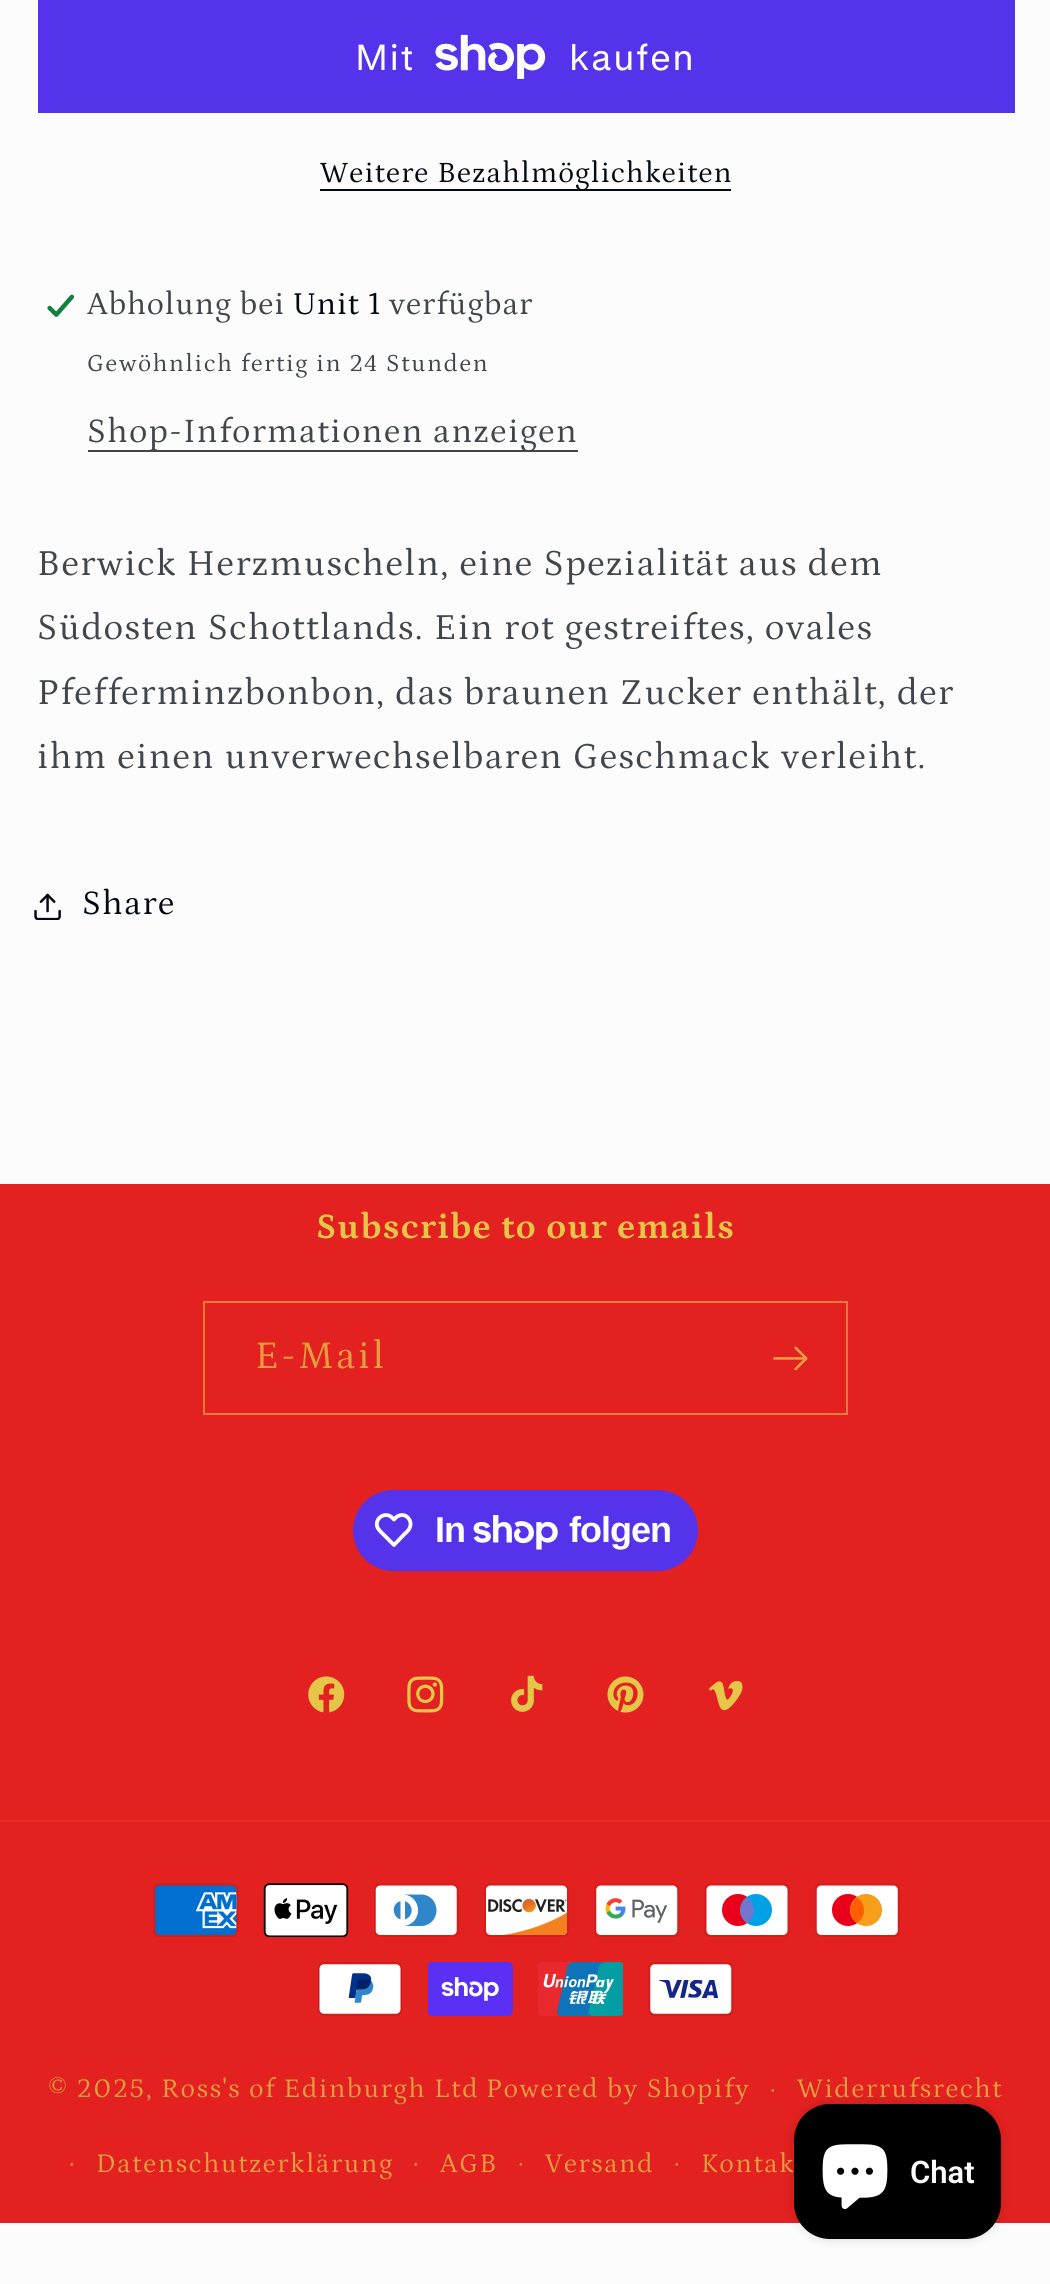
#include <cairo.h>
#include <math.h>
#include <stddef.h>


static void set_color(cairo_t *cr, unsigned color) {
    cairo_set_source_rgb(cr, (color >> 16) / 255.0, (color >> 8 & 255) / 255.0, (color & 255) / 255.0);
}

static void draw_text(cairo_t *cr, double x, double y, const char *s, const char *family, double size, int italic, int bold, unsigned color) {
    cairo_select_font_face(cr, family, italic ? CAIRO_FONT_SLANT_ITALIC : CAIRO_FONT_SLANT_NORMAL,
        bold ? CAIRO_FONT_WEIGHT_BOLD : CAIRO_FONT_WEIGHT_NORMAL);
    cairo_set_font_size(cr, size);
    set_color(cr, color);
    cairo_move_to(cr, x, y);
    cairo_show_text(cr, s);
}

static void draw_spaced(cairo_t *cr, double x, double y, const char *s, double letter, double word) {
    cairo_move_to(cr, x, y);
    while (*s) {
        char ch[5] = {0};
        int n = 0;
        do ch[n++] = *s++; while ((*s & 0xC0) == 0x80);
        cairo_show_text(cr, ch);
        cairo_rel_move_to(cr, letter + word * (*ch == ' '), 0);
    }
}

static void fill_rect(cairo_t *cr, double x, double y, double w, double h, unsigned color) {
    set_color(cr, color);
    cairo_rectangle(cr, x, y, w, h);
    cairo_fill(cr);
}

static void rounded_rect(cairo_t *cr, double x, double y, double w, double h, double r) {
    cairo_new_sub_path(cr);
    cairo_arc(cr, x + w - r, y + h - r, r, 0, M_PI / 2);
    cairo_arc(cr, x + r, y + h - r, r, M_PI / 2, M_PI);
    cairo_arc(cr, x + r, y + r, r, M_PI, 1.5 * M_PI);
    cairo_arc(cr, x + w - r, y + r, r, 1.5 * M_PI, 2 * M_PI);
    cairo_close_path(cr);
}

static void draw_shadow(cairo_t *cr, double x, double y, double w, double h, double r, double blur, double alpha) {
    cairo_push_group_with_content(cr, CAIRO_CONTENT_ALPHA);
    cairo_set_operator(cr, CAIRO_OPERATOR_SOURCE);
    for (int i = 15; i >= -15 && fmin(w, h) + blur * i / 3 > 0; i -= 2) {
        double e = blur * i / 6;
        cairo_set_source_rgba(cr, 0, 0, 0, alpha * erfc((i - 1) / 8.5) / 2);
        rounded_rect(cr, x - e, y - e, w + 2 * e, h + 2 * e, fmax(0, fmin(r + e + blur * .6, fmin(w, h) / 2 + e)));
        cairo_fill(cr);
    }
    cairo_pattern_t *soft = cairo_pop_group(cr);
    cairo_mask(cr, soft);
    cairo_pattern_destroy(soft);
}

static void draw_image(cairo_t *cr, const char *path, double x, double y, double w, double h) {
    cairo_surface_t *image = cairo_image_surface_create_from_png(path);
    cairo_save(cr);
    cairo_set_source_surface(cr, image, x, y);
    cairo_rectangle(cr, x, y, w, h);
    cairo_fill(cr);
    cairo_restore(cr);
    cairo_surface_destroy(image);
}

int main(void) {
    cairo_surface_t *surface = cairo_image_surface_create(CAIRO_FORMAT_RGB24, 1050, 2284);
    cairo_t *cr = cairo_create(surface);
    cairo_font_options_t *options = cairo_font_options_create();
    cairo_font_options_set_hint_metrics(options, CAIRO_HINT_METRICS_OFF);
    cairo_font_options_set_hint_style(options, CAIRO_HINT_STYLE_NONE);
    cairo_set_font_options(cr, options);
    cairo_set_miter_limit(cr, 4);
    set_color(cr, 0xFCFCFC);
    cairo_paint(cr);
    fill_rect(cr, 38, 0, 977, 113, 0x5433EB);
    cairo_select_font_face(cr, "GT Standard", CAIRO_FONT_SLANT_NORMAL, CAIRO_FONT_WEIGHT_NORMAL);
    cairo_set_font_size(cr, 36);
    set_color(cr, 0xFFFFFF);
    draw_spaced(cr, 355, 70, "Mit", 1.5, 0);
    draw_image(cr, "assets/img1.png", 435, 34, 111, 45);
    draw_spaced(cr, 569, 70, "kaufen", 1.5, 0);
    fill_rect(cr, 320, 189, 411, 2, 0x020912);
    cairo_select_font_face(cr, "Petrona", CAIRO_FONT_SLANT_NORMAL, CAIRO_FONT_WEIGHT_NORMAL);
    cairo_set_font_size(cr, 29.75);
    draw_spaced(cr, 320, 182, "Weitere Bezahlmöglichkeiten", 1.25, 0);
    draw_image(cr, "assets/img2.png", 47, 294, 28, 23);
    cairo_set_font_size(cr, 32.25);
    set_color(cr, 0x41464D);
    draw_spaced(cr, 87, 314, "Abholung bei", 1, 0);
    set_color(cr, 0x020912);
    draw_spaced(cr, 293, 314, "Unit 1", 1, 0);
    set_color(cr, 0x41464D);
    draw_spaced(cr, 389, 314, "verfügbar", 1, 0);
    cairo_set_font_size(cr, 24.75);
    draw_spaced(cr, 87, 371, "Gewöhnlich fertig in 24 Stunden", 1.75, 0);
    fill_rect(cr, 88, 450, 490, 2, 0x41464D);
    cairo_set_font_size(cr, 34.6);
    draw_spaced(cr, 87, 442, "Shop-Informationen anzeigen", 1.5, 0);
    cairo_set_font_size(cr, 37.1);
    draw_spaced(cr, 37, 575, "Berwick Herzmuscheln, eine Spezialität aus dem", 1.5, 0);
    draw_spaced(cr, 37, 639, "Südosten Schottlands. Ein rot gestreiftes, ovales", 1.5, 0);
    draw_spaced(cr, 37, 704, "Pfefferminzbonbon, das braunen Zucker enthält, der", 1.5, 0);
    draw_spaced(cr, 37, 768, "ihm einen unverwechselbaren Geschmack verleiht.", 1.5, 0);
    draw_image(cr, "assets/img3.png", 34, 893, 27, 27);
    cairo_set_font_size(cr, 34.6);
    set_color(cr, 0x020912);
    draw_spaced(cr, 82, 914, "Share", 1.5, 0);
    fill_rect(cr, 0, 1184, 1050, 1039, 0xE22120);
    cairo_select_font_face(cr, "Petrona", CAIRO_FONT_SLANT_NORMAL, CAIRO_FONT_WEIGHT_BOLD);
    cairo_set_font_size(cr, 36);
    set_color(cr, 0xE5C649);
    draw_spaced(cr, 316, 1238, "Subscribe to our emails", 1.35, 0);
    cairo_rectangle(cr, 204, 1302, 643, 112);
    set_color(cr, 0xE47C37);
    cairo_stroke(cr);
    cairo_select_font_face(cr, "Petrona", CAIRO_FONT_SLANT_NORMAL, CAIRO_FONT_WEIGHT_NORMAL);
    cairo_set_font_size(cr, 39.5);
    set_color(cr, 0xE49D3F);
    draw_spaced(cr, 255, 1368, "E-Mail", 2.5, 0);
    draw_image(cr, "assets/img4.png", 773, 1346, 35, 25);
    set_color(cr, 0x5433EB);
    rounded_rect(cr, 353, 1490, 345, 81, 40.5);
    cairo_fill(cr);
    cairo_new_path(cr);
    cairo_move_to(cr, 392, 1517.5);
    cairo_line_to(cr, 394, 1519.5);
    cairo_curve_to(cr, 395.5, 1518, 397, 1516, 399.5, 1515.5);
    cairo_curve_to(cr, 406, 1513, 412.5, 1520.5, 410, 1527);
    cairo_curve_to(cr, 409, 1530.5, 405.5, 1533, 403.5, 1535);
    cairo_line_to(cr, 394, 1545);
    cairo_line_to(cr, 384, 1535);
    cairo_curve_to(cr, 382, 1533, 379, 1530.5, 377.5, 1527.5);
    cairo_curve_to(cr, 374, 1518.5, 385, 1511, 392, 1517.5);
    cairo_close_path(cr);
    set_color(cr, 0xFFFFFF);
    cairo_set_line_width(cr, 3.8);
    cairo_set_line_join(cr, CAIRO_LINE_JOIN_ROUND);
    cairo_stroke(cr);
    cairo_select_font_face(cr, "Liberation Sans", CAIRO_FONT_SLANT_NORMAL, CAIRO_FONT_WEIGHT_BOLD);
    cairo_set_font_size(cr, 36);
    draw_spaced(cr, 435, 1542, "In", -1, 0);
    draw_image(cr, "assets/img5.png", 473, 1515, 85, 35);
    draw_spaced(cr, 569, 1542, "folgen", -1, 0);
    draw_image(cr, "assets/img6.png", 308, 1676, 37, 37);
    draw_image(cr, "assets/img7.png", 407, 1676, 37, 37);
    draw_image(cr, "assets/img8.png", 511, 1675, 32, 37);
    draw_image(cr, "assets/img9.png", 607, 1676, 37, 37);
    draw_image(cr, "assets/img10.png", 708, 1681, 35, 30);
    fill_rect(cr, 0, 1820, 1050, 2, 0xE22E23);
    draw_image(cr, "assets/img11.png", 153, 1883, 86, 54);
    draw_image(cr, "assets/img12.png", 263, 1883, 86, 54);
    draw_image(cr, "assets/img13.png", 374, 1883, 85, 54);
    draw_image(cr, "assets/img14.png", 484, 1883, 85, 54);
    draw_image(cr, "assets/img15.png", 594, 1883, 86, 54);
    draw_image(cr, "assets/img16.png", 704, 1883, 86, 54);
    draw_image(cr, "assets/img17.png", 815, 1883, 85, 54);
    draw_image(cr, "assets/img18.png", 317, 1962, 86, 54);
    draw_image(cr, "assets/img19.png", 428, 1962, 85, 54);
    draw_image(cr, "assets/img20.png", 538, 1962, 85, 54);
    draw_image(cr, "assets/img21.png", 648, 1962, 86, 54);
    cairo_select_font_face(cr, "Petrona", CAIRO_FONT_SLANT_NORMAL, CAIRO_FONT_WEIGHT_NORMAL);
    cairo_set_font_size(cr, 27.25);
    set_color(cr, 0xE49D3F);
    draw_spaced(cr, 48, 2097, "© 2025, Ross's of Edinburgh Ltd", 1.75, 0);
    cairo_set_font_size(cr, 24.75);
    draw_spaced(cr, 770, 2097, "·", 1.75, 0);
    cairo_set_font_size(cr, 27.25);
    draw_spaced(cr, 797, 2097, "Widerrufsrecht", 1.75, 0);
    cairo_set_font_size(cr, 24.75);
    draw_spaced(cr, 69, 2171, "·", 1.75, 0);
    cairo_set_font_size(cr, 27.25);
    draw_spaced(cr, 96, 2172, "Datenschutzerklärung", 1.75, 0);
    cairo_set_font_size(cr, 24.75);
    draw_spaced(cr, 413, 2171, "·", 1.75, 0);
    cairo_set_font_size(cr, 27.25);
    draw_spaced(cr, 440, 2172, "AGB", 1.75, 0);
    cairo_set_font_size(cr, 24.75);
    draw_spaced(cr, 518, 2171, "·", 1.75, 0);
    cairo_set_font_size(cr, 27.25);
    draw_spaced(cr, 545, 2172, "Versand", 1.75, 0);
    cairo_set_font_size(cr, 24.75);
    draw_spaced(cr, 674, 2171, "·", 1.75, 0);
    cairo_set_font_size(cr, 27.25);
    draw_spaced(cr, 701, 2172, "Kontak", 1.75, 0);
    draw_spaced(cr, 486, 2097, "Powered by Shopify", 1.75, 0);
    set_color(cr, 0x000000);
    draw_shadow(cr, 794, 2104, 207, 135, 36, 5.5, 0.15);
    set_color(cr, 0x000000);
    rounded_rect(cr, 794, 2104, 207, 135, 36);
    cairo_fill(cr);
    draw_image(cr, "assets/img22.png", 822, 2144, 66, 65);
    draw_text(cr, 910, 2183, "Chat", "Roboto SemiBold", 31, 0, 0, 0xFFFFFF);
    cairo_surface_write_to_png(surface, "output.png");
    cairo_font_options_destroy(options);
    cairo_destroy(cr);
    cairo_surface_destroy(surface);
    return 0;
}
